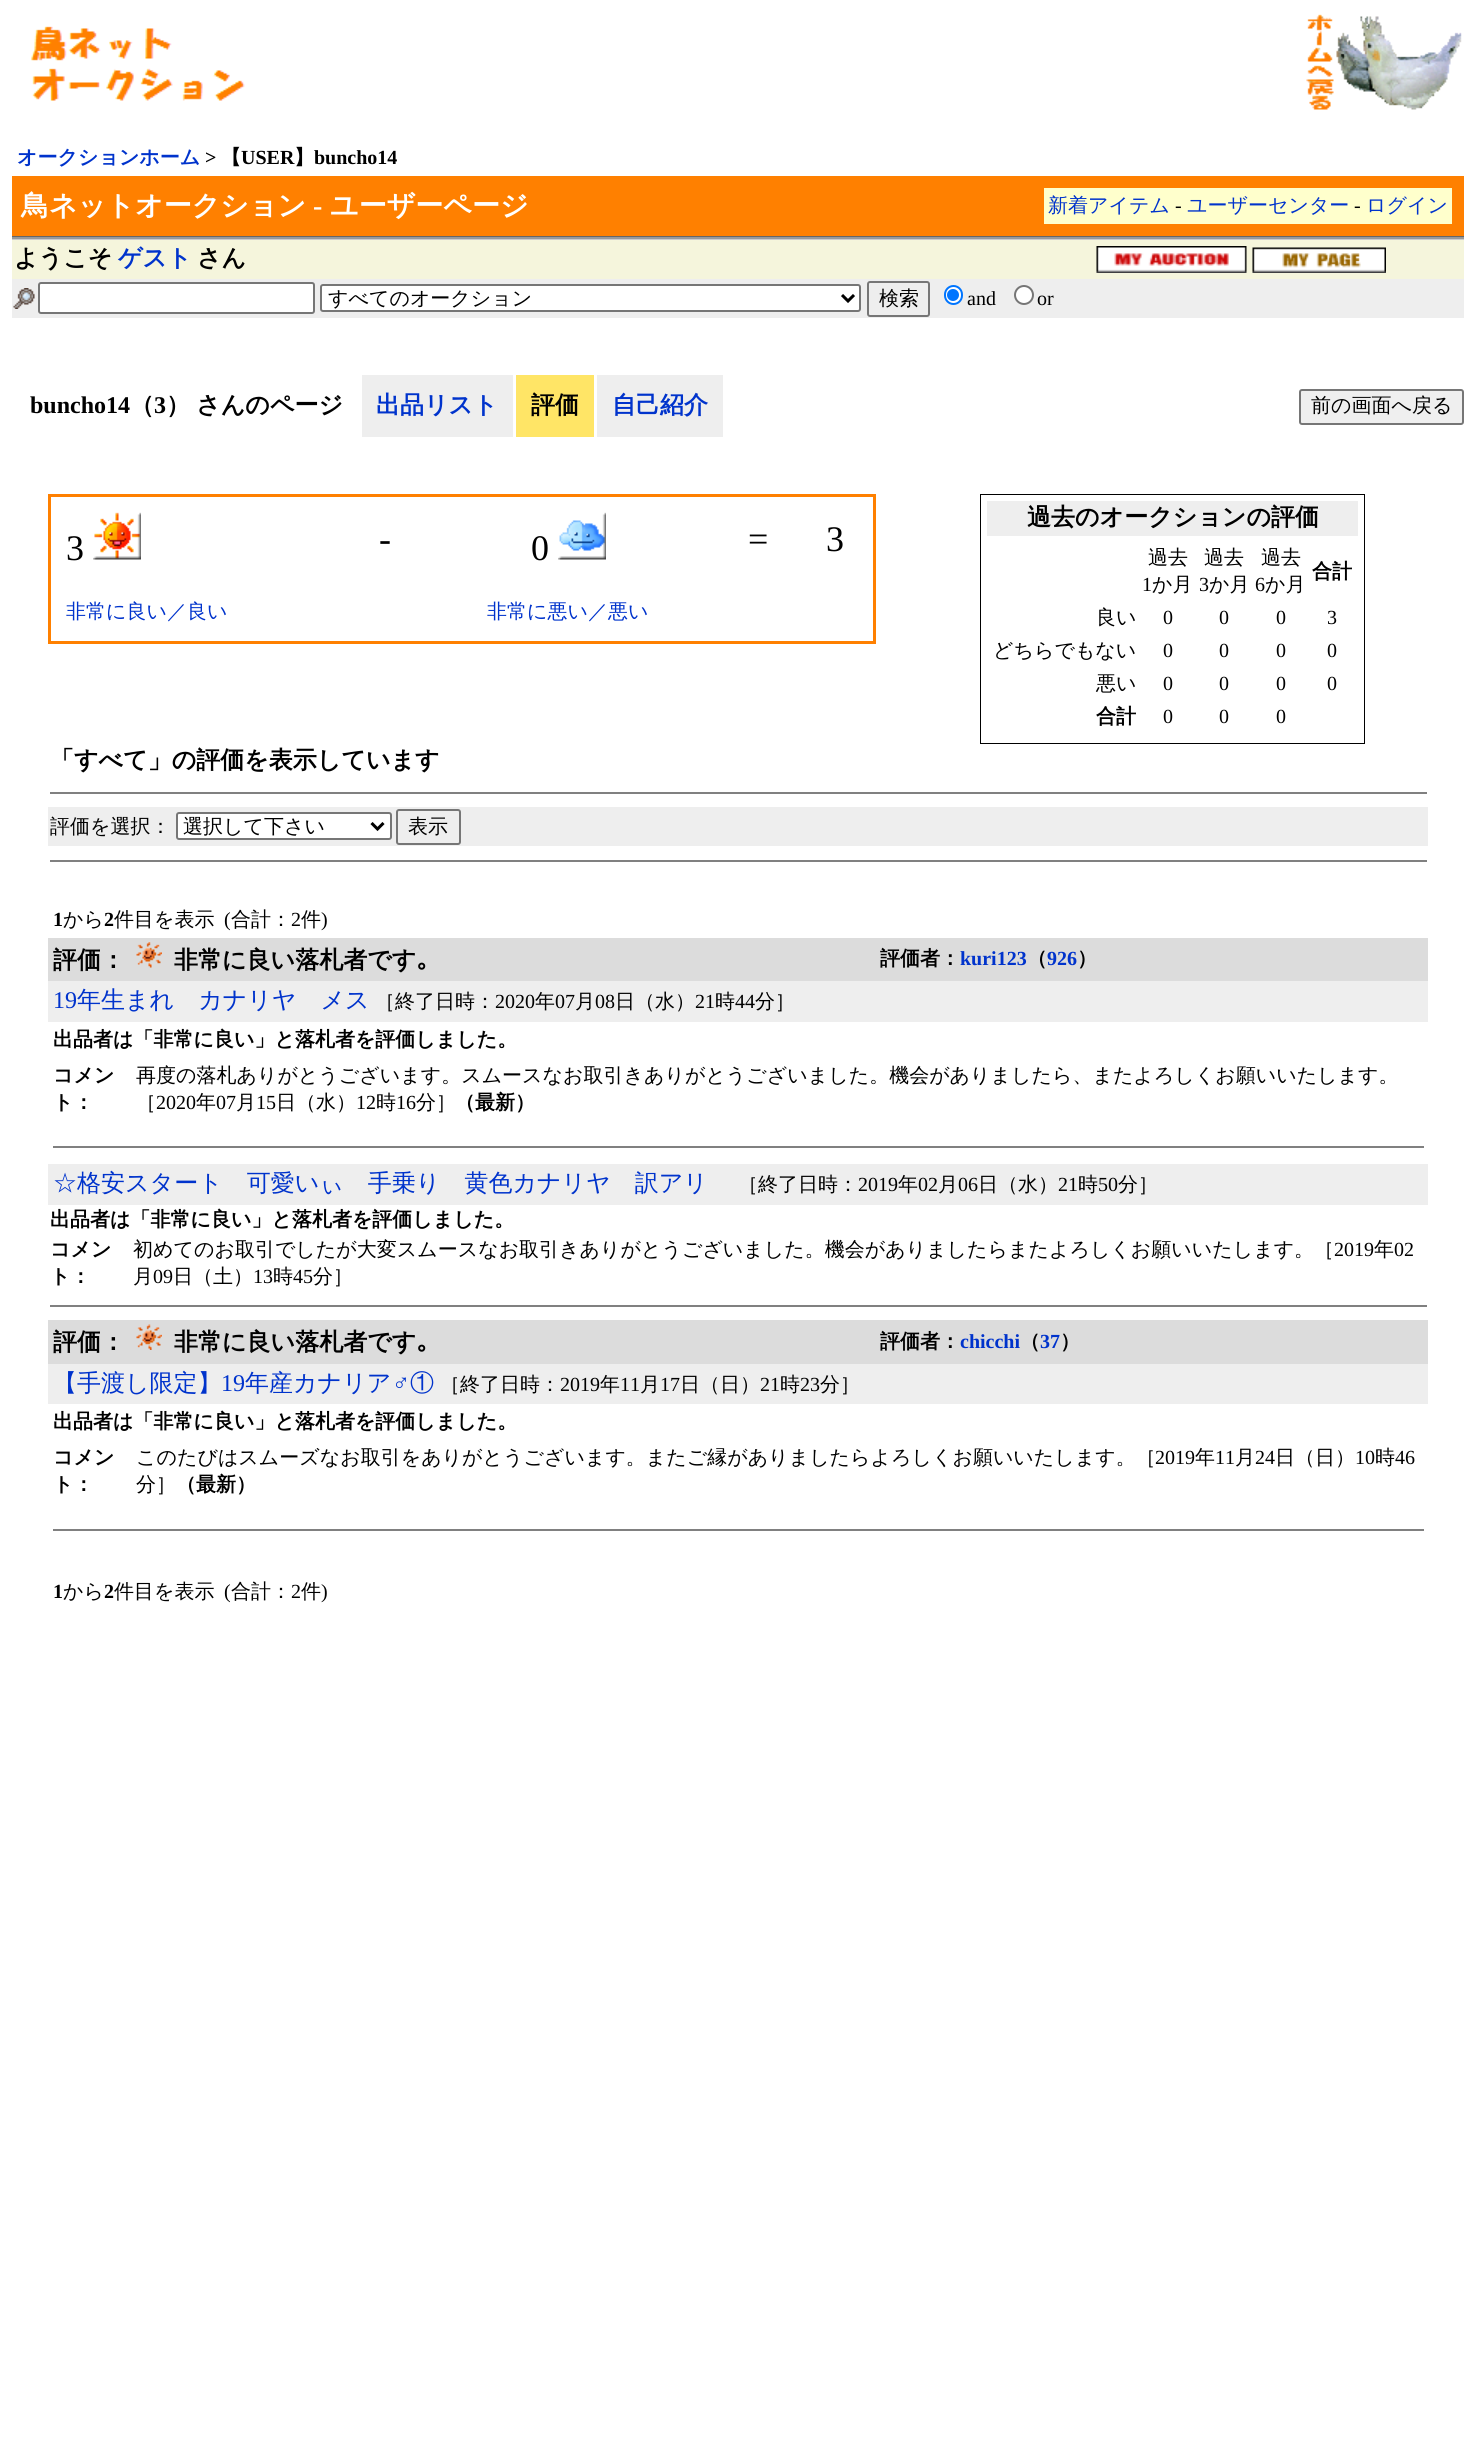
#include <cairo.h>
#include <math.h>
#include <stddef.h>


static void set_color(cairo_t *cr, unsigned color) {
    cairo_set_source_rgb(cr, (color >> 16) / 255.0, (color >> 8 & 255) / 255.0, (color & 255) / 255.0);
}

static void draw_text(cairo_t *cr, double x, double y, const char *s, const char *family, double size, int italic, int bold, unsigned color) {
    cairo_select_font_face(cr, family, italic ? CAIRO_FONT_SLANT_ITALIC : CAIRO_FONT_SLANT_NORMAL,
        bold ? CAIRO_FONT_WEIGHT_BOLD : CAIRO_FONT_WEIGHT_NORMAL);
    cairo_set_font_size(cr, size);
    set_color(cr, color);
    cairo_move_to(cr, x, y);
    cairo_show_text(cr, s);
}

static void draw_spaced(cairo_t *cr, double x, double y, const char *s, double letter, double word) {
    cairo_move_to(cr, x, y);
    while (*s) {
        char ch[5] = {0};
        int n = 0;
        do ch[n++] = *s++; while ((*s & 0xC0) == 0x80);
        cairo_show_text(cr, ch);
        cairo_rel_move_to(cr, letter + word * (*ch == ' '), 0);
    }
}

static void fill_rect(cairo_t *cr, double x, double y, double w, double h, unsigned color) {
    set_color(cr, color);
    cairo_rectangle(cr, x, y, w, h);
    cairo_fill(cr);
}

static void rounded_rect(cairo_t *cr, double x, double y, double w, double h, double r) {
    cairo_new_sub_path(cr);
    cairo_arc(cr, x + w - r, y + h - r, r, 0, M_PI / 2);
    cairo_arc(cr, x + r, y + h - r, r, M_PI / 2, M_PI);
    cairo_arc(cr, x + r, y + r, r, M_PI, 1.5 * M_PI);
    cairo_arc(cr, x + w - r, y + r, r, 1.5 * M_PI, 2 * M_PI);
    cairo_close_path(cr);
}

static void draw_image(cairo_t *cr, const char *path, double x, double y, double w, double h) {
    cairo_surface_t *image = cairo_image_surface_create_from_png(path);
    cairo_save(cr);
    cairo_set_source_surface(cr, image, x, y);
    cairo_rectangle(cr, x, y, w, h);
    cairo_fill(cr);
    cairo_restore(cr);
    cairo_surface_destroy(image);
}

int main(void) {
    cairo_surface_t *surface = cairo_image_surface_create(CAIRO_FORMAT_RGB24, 1475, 2443);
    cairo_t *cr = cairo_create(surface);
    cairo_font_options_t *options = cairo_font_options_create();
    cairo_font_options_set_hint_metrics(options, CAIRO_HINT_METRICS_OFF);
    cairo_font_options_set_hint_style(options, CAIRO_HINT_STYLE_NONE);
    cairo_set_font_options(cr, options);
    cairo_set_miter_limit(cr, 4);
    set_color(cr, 0xFFFFFF);
    cairo_paint(cr);
    draw_image(cr, "assets/img1.png", 31, 26, 214, 75);
    draw_image(cr, "assets/img2.png", 1306, 14, 156, 96);
    draw_text(cr, 17, 164, "オークションホーム", "WenQuanYi Zen Hei", 20, 0, 1, 0x0033CC);
    draw_text(cr, 205, 164, ">", "Liberation Serif", 20, 0, 1, 0x000000);
    draw_text(cr, 221, 164, "【", "WenQuanYi Zen Hei", 20, 0, 1, 0x000000);
    draw_text(cr, 241, 164, "USER", "Liberation Serif", 20, 0, 1, 0x000000);
    draw_text(cr, 294, 164, "】", "WenQuanYi Zen Hei", 20, 0, 1, 0x000000);
    draw_text(cr, 314, 164, "buncho14", "Liberation Serif", 20, 0, 1, 0x000000);
    fill_rect(cr, 12, 176, 1452, 60, 0xFF8000);
    draw_text(cr, 21, 215, "鳥ネットオークション", "WenQuanYi Zen Hei", 28, 0, 1, 0xFFFFFF);
    draw_text(cr, 313, 215, "-", "Liberation Serif", 28, 0, 1, 0xFFFFFF);
    draw_text(cr, 330, 215, "ユーザーページ", "WenQuanYi Zen Hei", 28, 0, 1, 0xFFFFFF);
    fill_rect(cr, 1044, 188, 408, 36, 0xFFFFCC);
    draw_text(cr, 1048, 212, "新着アイテム", "WenQuanYi Zen Hei Medium", 20, 0, 0, 0x0033CC);
    draw_text(cr, 1175, 212, "-", "Liberation Serif", 20, 0, 0, 0x000000);
    draw_text(cr, 1187, 212, "ユーザーセンター", "WenQuanYi Zen Hei Medium", 20, 0, 0, 0x0033CC);
    draw_text(cr, 1354, 212, "-", "Liberation Serif", 20, 0, 0, 0x000000);
    draw_text(cr, 1366, 212, "ログイン", "WenQuanYi Zen Hei Medium", 20, 0, 0, 0x0033CC);
    fill_rect(cr, 12, 236, 1452, 1, 0x666666);
    fill_rect(cr, 12, 237, 1452, 2, 0x999999);
    fill_rect(cr, 12, 239, 1452, 1, 0xCCCCCC);
    fill_rect(cr, 12, 240, 1452, 39, 0xF5F5DC);
    draw_text(cr, 14, 266, "ようこそ", "WenQuanYi Zen Hei", 24, 0, 1, 0x000000);
    draw_text(cr, 118, 266, "ゲスト", "WenQuanYi Zen Hei", 24, 0, 1, 0x0033CC);
    draw_text(cr, 197, 266, "さん", "WenQuanYi Zen Hei", 24, 0, 1, 0x000000);
    draw_image(cr, "assets/img3.png", 1096, 246, 151, 27);
    draw_image(cr, "assets/img4.png", 1252, 247, 134, 26);
    fill_rect(cr, 12, 279, 1452, 39, 0xEEEEEE);
    draw_image(cr, "assets/img5.png", 13, 288, 22, 21);
    set_color(cr, 0xFFFFFF);
    rounded_rect(cr, 39, 283, 275, 30, 2);
    cairo_fill_preserve(cr);
    set_color(cr, 0x767676);
    cairo_stroke(cr);
    set_color(cr, 0xFFFFFF);
    rounded_rect(cr, 321, 285, 539, 26, 2);
    cairo_fill_preserve(cr);
    set_color(cr, 0x767676);
    cairo_stroke(cr);
    cairo_new_path(cr);
    cairo_move_to(cr, 842, 295);
    cairo_line_to(cr, 848, 301);
    cairo_line_to(cr, 854, 295);
    set_color(cr, 0x000000);
    cairo_set_line_width(cr, 3);
    cairo_stroke(cr);
    draw_text(cr, 328, 305, "すべてのオークション", "WenQuanYi Zen Hei Medium", 20, 0, 0, 0x000000);
    rounded_rect(cr, 868, 282, 61, 34, 2);
    set_color(cr, 0x767676);
    cairo_set_line_width(cr, 2);
    cairo_stroke(cr);
    draw_text(cr, 879, 305, "検索", "WenQuanYi Zen Hei Medium", 20, 0, 0, 0x000000);
    set_color(cr, 0xFFFFFF);
    rounded_rect(cr, 945, 286, 17, 18, 8.5);
    cairo_fill_preserve(cr);
    set_color(cr, 0x0075FF);
    cairo_stroke(cr);
    cairo_arc(cr, 953, 295, 6, 0, 2 * M_PI);
    cairo_fill(cr);
    draw_text(cr, 967, 305, "and", "Liberation Serif", 20, 0, 0, 0x000000);
    set_color(cr, 0xFFFFFF);
    cairo_new_path(cr);
    cairo_arc(cr, 1024, 295, 9, 0, 2 * M_PI);
    cairo_fill_preserve(cr);
    set_color(cr, 0x767676);
    cairo_stroke(cr);
    draw_text(cr, 1037, 305, "or", "Liberation Serif", 20, 0, 0, 0x000000);
    draw_text(cr, 30, 413, "buncho14", "Liberation Serif", 24, 0, 1, 0x000000);
    draw_text(cr, 130, 413, "（", "WenQuanYi Zen Hei", 24, 0, 1, 0x000000);
    draw_text(cr, 154, 413, "3", "Liberation Serif", 24, 0, 1, 0x000000);
    cairo_select_font_face(cr, "WenQuanYi Zen Hei", CAIRO_FONT_SLANT_NORMAL, CAIRO_FONT_WEIGHT_BOLD);
    draw_spaced(cr, 166, 413, "） さんのページ", 0, -1);
    fill_rect(cr, 362, 375, 151, 62, 0xEEEEEE);
    draw_text(cr, 376, 413, "出品リスト", "WenQuanYi Zen Hei", 24, 0, 1, 0x0033CC);
    fill_rect(cr, 516, 375, 78, 62, 0xFFE566);
    draw_text(cr, 531, 413, "評価", "WenQuanYi Zen Hei", 24, 0, 1, 0x000000);
    fill_rect(cr, 597, 375, 126, 62, 0xEEEEEE);
    draw_text(cr, 612, 413, "自己紹介", "WenQuanYi Zen Hei", 24, 0, 1, 0x0033CC);
    set_color(cr, 0xEFEFEF);
    rounded_rect(cr, 1300, 390, 163, 34, 2);
    cairo_fill_preserve(cr);
    set_color(cr, 0x767676);
    cairo_stroke(cr);
    draw_text(cr, 1311, 412, "前の画面へ戻る", "WenQuanYi Zen Hei Medium", 20, 0, 0, 0x000000);
    fill_rect(cr, 48, 494, 828, 150, 0xFF8000);
    fill_rect(cr, 51, 497, 822, 144, 0xFFFFFF);
    draw_text(cr, 66, 560, "3", "Liberation Serif", 36, 0, 0, 0x000000);
    draw_image(cr, "assets/img6.png", 93, 512, 48, 48);
    draw_text(cr, 379, 551, "-", "Liberation Serif", 36, 0, 0, 0x000000);
    draw_text(cr, 531, 560, "0", "Liberation Serif", 36, 0, 0, 0x000000);
    draw_image(cr, "assets/img7.png", 558, 512, 48, 48);
    draw_text(cr, 748, 551, "=", "Liberation Serif", 36, 0, 0, 0x000000);
    draw_text(cr, 826, 551, "3", "Liberation Serif", 36, 0, 0, 0x000000);
    draw_text(cr, 66, 618, "非常に良い／良い", "WenQuanYi Zen Hei Medium", 20, 0, 0, 0x0033CC);
    draw_text(cr, 487, 618, "非常に悪い／悪い", "WenQuanYi Zen Hei Medium", 20, 0, 0, 0x0033CC);
    fill_rect(cr, 980, 494, 385, 250, 0x000000);
    fill_rect(cr, 981, 495, 383, 248, 0xFFFFFF);
    fill_rect(cr, 987, 501, 371, 35, 0xEEEEEE);
    draw_text(cr, 1027, 525, "過去のオークションの評価", "WenQuanYi Zen Hei", 24, 0, 1, 0x000000);
    draw_text(cr, 1148, 564, "過去", "WenQuanYi Zen Hei Medium", 20, 0, 0, 0x000000);
    draw_text(cr, 1142, 591, "1", "Liberation Serif", 20, 0, 0, 0x000000);
    draw_text(cr, 1152, 591, "か月", "WenQuanYi Zen Hei Medium", 20, 0, 0, 0x000000);
    draw_text(cr, 1204, 564, "過去", "WenQuanYi Zen Hei Medium", 20, 0, 0, 0x000000);
    draw_text(cr, 1199, 591, "3", "Liberation Serif", 20, 0, 0, 0x000000);
    draw_text(cr, 1209, 591, "か月", "WenQuanYi Zen Hei Medium", 20, 0, 0, 0x000000);
    draw_text(cr, 1261, 564, "過去", "WenQuanYi Zen Hei Medium", 20, 0, 0, 0x000000);
    draw_text(cr, 1255, 591, "6", "Liberation Serif", 20, 0, 0, 0x000000);
    draw_text(cr, 1265, 591, "か月", "WenQuanYi Zen Hei Medium", 20, 0, 0, 0x000000);
    draw_text(cr, 1312, 578, "合計", "WenQuanYi Zen Hei", 20, 0, 1, 0x000000);
    draw_text(cr, 1096, 624, "良い", "WenQuanYi Zen Hei Medium", 20, 0, 0, 0x000000);
    draw_text(cr, 1163, 624, "0", "Liberation Serif", 20, 0, 0, 0x000000);
    draw_text(cr, 1219, 624, "0", "Liberation Serif", 20, 0, 0, 0x000000);
    draw_text(cr, 1276, 624, "0", "Liberation Serif", 20, 0, 0, 0x000000);
    draw_text(cr, 1327, 624, "3", "Liberation Serif", 20, 0, 0, 0x000000);
    draw_text(cr, 993, 657, "どちらでもない", "WenQuanYi Zen Hei Medium", 20, 0, 0, 0x000000);
    draw_text(cr, 1163, 657, "0", "Liberation Serif", 20, 0, 0, 0x000000);
    draw_text(cr, 1219, 657, "0", "Liberation Serif", 20, 0, 0, 0x000000);
    draw_text(cr, 1276, 657, "0", "Liberation Serif", 20, 0, 0, 0x000000);
    draw_text(cr, 1327, 657, "0", "Liberation Serif", 20, 0, 0, 0x000000);
    draw_text(cr, 1096, 690, "悪い", "WenQuanYi Zen Hei Medium", 20, 0, 0, 0x000000);
    draw_text(cr, 1163, 690, "0", "Liberation Serif", 20, 0, 0, 0x000000);
    draw_text(cr, 1219, 690, "0", "Liberation Serif", 20, 0, 0, 0x000000);
    draw_text(cr, 1276, 690, "0", "Liberation Serif", 20, 0, 0, 0x000000);
    draw_text(cr, 1327, 690, "0", "Liberation Serif", 20, 0, 0, 0x000000);
    draw_text(cr, 1096, 723, "合計", "WenQuanYi Zen Hei", 20, 0, 1, 0x000000);
    draw_text(cr, 1163, 723, "0", "Liberation Serif", 20, 0, 0, 0x000000);
    draw_text(cr, 1219, 723, "0", "Liberation Serif", 20, 0, 0, 0x000000);
    draw_text(cr, 1276, 723, "0", "Liberation Serif", 20, 0, 0, 0x000000);
    draw_text(cr, 50, 768, "「すべて」の評価を表示しています", "WenQuanYi Zen Hei", 24, 0, 1, 0x000000);
    fill_rect(cr, 50, 792, 1377, 2, 0x808080);
    fill_rect(cr, 48, 807, 1380, 39, 0xEEEEEE);
    draw_text(cr, 50, 833, "評価を選択：", "WenQuanYi Zen Hei Medium", 20, 0, 0, 0x000000);
    set_color(cr, 0xFFFFFF);
    rounded_rect(cr, 177, 813, 214, 26, 2);
    cairo_fill_preserve(cr);
    set_color(cr, 0x767676);
    cairo_stroke(cr);
    cairo_new_path(cr);
    cairo_move_to(cr, 371.5, 823);
    cairo_line_to(cr, 377.5, 829);
    cairo_line_to(cr, 383.5, 823);
    set_color(cr, 0x000000);
    cairo_set_line_width(cr, 3);
    cairo_stroke(cr);
    draw_text(cr, 183, 833, "選択して下さい", "WenQuanYi Zen Hei Medium", 20, 0, 0, 0x000000);
    rounded_rect(cr, 397, 810, 63, 34, 2);
    set_color(cr, 0x767676);
    cairo_set_line_width(cr, 2);
    cairo_stroke(cr);
    draw_text(cr, 408, 833, "表示", "WenQuanYi Zen Hei Medium", 20, 0, 0, 0x000000);
    fill_rect(cr, 50, 860, 1377, 2, 0x808080);
    draw_text(cr, 53, 926, "1", "Liberation Serif", 20, 0, 1, 0x000000);
    draw_text(cr, 63, 926, "から", "WenQuanYi Zen Hei Medium", 20, 0, 0, 0x000000);
    draw_text(cr, 104, 926, "2", "Liberation Serif", 20, 0, 1, 0x000000);
    draw_text(cr, 114, 926, "件目を表示", "WenQuanYi Zen Hei Medium", 20, 0, 0, 0x000000);
    draw_text(cr, 224, 926, "(", "Liberation Serif", 20, 0, 0, 0x000000);
    draw_text(cr, 231, 926, "合計：", "WenQuanYi Zen Hei Medium", 20, 0, 0, 0x000000);
    draw_text(cr, 291, 926, "2", "Liberation Serif", 20, 0, 0, 0x000000);
    draw_text(cr, 301, 926, "件", "WenQuanYi Zen Hei Medium", 20, 0, 0, 0x000000);
    draw_text(cr, 321, 926, ")", "Liberation Serif", 20, 0, 0, 0x000000);
    fill_rect(cr, 48, 938, 1380, 43, 0xDCDCDC);
    draw_text(cr, 53, 968, "評価：", "WenQuanYi Zen Hei", 24, 0, 1, 0x000000);
    draw_image(cr, "assets/img8.png", 136, 942, 26, 26);
    draw_text(cr, 174, 968, "非常に良い落札者です", "WenQuanYi Zen Hei", 24, 0, 1, 0x000000);
    draw_text(cr, 417, 968, "｡", "IPAGothic", 24, 0, 1, 0x000000);
    draw_text(cr, 880, 965, "評価者：", "WenQuanYi Zen Hei", 20, 0, 1, 0x000000);
    draw_text(cr, 960, 965, "kuri123", "Liberation Serif", 20, 0, 1, 0x0033CC);
    draw_text(cr, 1027, 965, "（", "WenQuanYi Zen Hei", 20, 0, 1, 0x000000);
    draw_text(cr, 1047, 965, "926", "Liberation Serif", 20, 0, 1, 0x0033CC);
    draw_text(cr, 1077, 965, "）", "WenQuanYi Zen Hei", 20, 0, 1, 0x000000);
    fill_rect(cr, 48, 981, 1380, 41, 0xEEEEEE);
    draw_text(cr, 53, 1008, "19", "Liberation Serif", 24, 0, 0, 0x0033CC);
    draw_text(cr, 77, 1008, "年生まれ　カナリヤ　メス", "WenQuanYi Zen Hei Medium", 24, 0, 0, 0x0033CC);
    draw_text(cr, 375, 1008, "［終了日時：", "WenQuanYi Zen Hei Medium", 20, 0, 0, 0x000000);
    draw_text(cr, 495, 1008, "2020", "Liberation Serif", 20, 0, 0, 0x000000);
    draw_text(cr, 535, 1008, "年", "WenQuanYi Zen Hei Medium", 20, 0, 0, 0x000000);
    draw_text(cr, 555, 1008, "07", "Liberation Serif", 20, 0, 0, 0x000000);
    draw_text(cr, 575, 1008, "月", "WenQuanYi Zen Hei Medium", 20, 0, 0, 0x000000);
    draw_text(cr, 595, 1008, "08", "Liberation Serif", 20, 0, 0, 0x000000);
    draw_text(cr, 615, 1008, "日（水）", "WenQuanYi Zen Hei Medium", 20, 0, 0, 0x000000);
    draw_text(cr, 695, 1008, "21", "Liberation Serif", 20, 0, 0, 0x000000);
    draw_text(cr, 715, 1008, "時", "WenQuanYi Zen Hei Medium", 20, 0, 0, 0x000000);
    draw_text(cr, 735, 1008, "44", "Liberation Serif", 20, 0, 0, 0x000000);
    draw_text(cr, 755, 1008, "分］", "WenQuanYi Zen Hei Medium", 20, 0, 0, 0x000000);
    draw_text(cr, 53, 1046, "出品者は「非常に良い」と落札者を評価しました。", "WenQuanYi Zen Hei", 20, 0, 1, 0x000000);
    draw_text(cr, 53, 1082, "コメン", "WenQuanYi Zen Hei", 20, 0, 1, 0x000000);
    draw_text(cr, 53, 1109, "ト：", "WenQuanYi Zen Hei", 20, 0, 1, 0x000000);
    draw_text(cr, 136, 1082, "再度の落札ありがとうございます。スムースなお取引きありがとうございました。機会がありましたら、またよろしくお願いいたします。", "WenQuanYi Zen Hei Medium", 20, 0, 0, 0x000000);
    draw_text(cr, 136, 1109, "［", "WenQuanYi Zen Hei Medium", 20, 0, 0, 0x000000);
    draw_text(cr, 156, 1109, "2020", "Liberation Serif", 20, 0, 0, 0x000000);
    draw_text(cr, 196, 1109, "年", "WenQuanYi Zen Hei Medium", 20, 0, 0, 0x000000);
    draw_text(cr, 216, 1109, "07", "Liberation Serif", 20, 0, 0, 0x000000);
    draw_text(cr, 236, 1109, "月", "WenQuanYi Zen Hei Medium", 20, 0, 0, 0x000000);
    draw_text(cr, 256, 1109, "15", "Liberation Serif", 20, 0, 0, 0x000000);
    draw_text(cr, 276, 1109, "日（水）", "WenQuanYi Zen Hei Medium", 20, 0, 0, 0x000000);
    draw_text(cr, 356, 1109, "12", "Liberation Serif", 20, 0, 0, 0x000000);
    draw_text(cr, 376, 1109, "時", "WenQuanYi Zen Hei Medium", 20, 0, 0, 0x000000);
    draw_text(cr, 396, 1109, "16", "Liberation Serif", 20, 0, 0, 0x000000);
    draw_text(cr, 416, 1109, "分］", "WenQuanYi Zen Hei Medium", 20, 0, 0, 0x000000);
    draw_text(cr, 455, 1109, "（最新）", "WenQuanYi Zen Hei", 20, 0, 1, 0x000000);
    fill_rect(cr, 53, 1146, 1371, 2, 0x808080);
    fill_rect(cr, 48, 1164, 1380, 41, 0xEEEEEE);
    draw_text(cr, 53, 1191, "☆格安スタート　可愛いぃ　手乗り　黄色カナリヤ　訳アリ", "WenQuanYi Zen Hei Medium", 24, 0, 0, 0x0033CC);
    draw_text(cr, 738, 1191, "［終了日時：", "WenQuanYi Zen Hei Medium", 20, 0, 0, 0x000000);
    draw_text(cr, 858, 1191, "2019", "Liberation Serif", 20, 0, 0, 0x000000);
    draw_text(cr, 898, 1191, "年", "WenQuanYi Zen Hei Medium", 20, 0, 0, 0x000000);
    draw_text(cr, 918, 1191, "02", "Liberation Serif", 20, 0, 0, 0x000000);
    draw_text(cr, 938, 1191, "月", "WenQuanYi Zen Hei Medium", 20, 0, 0, 0x000000);
    draw_text(cr, 958, 1191, "06", "Liberation Serif", 20, 0, 0, 0x000000);
    draw_text(cr, 978, 1191, "日（水）", "WenQuanYi Zen Hei Medium", 20, 0, 0, 0x000000);
    draw_text(cr, 1058, 1191, "21", "Liberation Serif", 20, 0, 0, 0x000000);
    draw_text(cr, 1078, 1191, "時", "WenQuanYi Zen Hei Medium", 20, 0, 0, 0x000000);
    draw_text(cr, 1098, 1191, "50", "Liberation Serif", 20, 0, 0, 0x000000);
    draw_text(cr, 1118, 1191, "分］", "WenQuanYi Zen Hei Medium", 20, 0, 0, 0x000000);
    draw_text(cr, 50, 1226, "出品者は「非常に良い」と落札者を評価しました。", "WenQuanYi Zen Hei", 20, 0, 1, 0x000000);
    draw_text(cr, 50, 1256, "コメン", "WenQuanYi Zen Hei", 20, 0, 1, 0x000000);
    draw_text(cr, 50, 1283, "ト：", "WenQuanYi Zen Hei", 20, 0, 1, 0x000000);
    draw_text(cr, 133, 1256, "初めてのお取引でしたが大変スムースなお取引きありがとうございました。機会がありましたらまたよろしくお願いいたします。［", "WenQuanYi Zen Hei Medium", 20, 0, 0, 0x000000);
    draw_text(cr, 1334, 1256, "2019", "Liberation Serif", 20, 0, 0, 0x000000);
    draw_text(cr, 1374, 1256, "年", "WenQuanYi Zen Hei Medium", 20, 0, 0, 0x000000);
    draw_text(cr, 1394, 1256, "02", "Liberation Serif", 20, 0, 0, 0x000000);
    draw_text(cr, 133, 1283, "月", "WenQuanYi Zen Hei Medium", 20, 0, 0, 0x000000);
    draw_text(cr, 153, 1283, "09", "Liberation Serif", 20, 0, 0, 0x000000);
    draw_text(cr, 173, 1283, "日（土）", "WenQuanYi Zen Hei Medium", 20, 0, 0, 0x000000);
    draw_text(cr, 253, 1283, "13", "Liberation Serif", 20, 0, 0, 0x000000);
    draw_text(cr, 273, 1283, "時", "WenQuanYi Zen Hei Medium", 20, 0, 0, 0x000000);
    draw_text(cr, 293, 1283, "45", "Liberation Serif", 20, 0, 0, 0x000000);
    draw_text(cr, 313, 1283, "分］", "WenQuanYi Zen Hei Medium", 20, 0, 0, 0x000000);
    fill_rect(cr, 50, 1305, 1377, 2, 0x808080);
    fill_rect(cr, 48, 1320, 1380, 44, 0xDCDCDC);
    draw_text(cr, 53, 1350, "評価：", "WenQuanYi Zen Hei", 24, 0, 1, 0x000000);
    draw_image(cr, "assets/img9.png", 136, 1324, 26, 26);
    draw_text(cr, 174, 1350, "非常に良い落札者です", "WenQuanYi Zen Hei", 24, 0, 1, 0x000000);
    draw_text(cr, 417, 1350, "｡", "IPAGothic", 24, 0, 1, 0x000000);
    draw_text(cr, 880, 1348, "評価者：", "WenQuanYi Zen Hei", 20, 0, 1, 0x000000);
    draw_text(cr, 960, 1348, "chicchi", "Liberation Serif", 20, 0, 1, 0x0033CC);
    draw_text(cr, 1020, 1348, "（", "WenQuanYi Zen Hei", 20, 0, 1, 0x000000);
    draw_text(cr, 1040, 1348, "37", "Liberation Serif", 20, 0, 1, 0x0033CC);
    draw_text(cr, 1060, 1348, "）", "WenQuanYi Zen Hei", 20, 0, 1, 0x000000);
    fill_rect(cr, 48, 1364, 1380, 40, 0xEEEEEE);
    draw_text(cr, 53, 1391, "【手渡し限定】", "WenQuanYi Zen Hei Medium", 24, 0, 0, 0x0033CC);
    draw_text(cr, 221, 1391, "19", "Liberation Serif", 24, 0, 0, 0x0033CC);
    draw_text(cr, 245, 1391, "年産カナリア", "WenQuanYi Zen Hei Medium", 24, 0, 0, 0x0033CC);
    draw_text(cr, 392, 1391, "♂", "Liberation Serif", 24, 0, 0, 0x0033CC);
    draw_text(cr, 410, 1391, "①", "WenQuanYi Zen Hei Medium", 24, 0, 0, 0x0033CC);
    draw_text(cr, 440, 1391, "［終了日時：", "WenQuanYi Zen Hei Medium", 20, 0, 0, 0x000000);
    draw_text(cr, 560, 1391, "2019", "Liberation Serif", 20, 0, 0, 0x000000);
    draw_text(cr, 600, 1391, "年", "WenQuanYi Zen Hei Medium", 20, 0, 0, 0x000000);
    draw_text(cr, 620, 1391, "11", "Liberation Serif", 20, 0, 0, 0x000000);
    draw_text(cr, 640, 1391, "月", "WenQuanYi Zen Hei Medium", 20, 0, 0, 0x000000);
    draw_text(cr, 660, 1391, "17", "Liberation Serif", 20, 0, 0, 0x000000);
    draw_text(cr, 680, 1391, "日（日）", "WenQuanYi Zen Hei Medium", 20, 0, 0, 0x000000);
    draw_text(cr, 760, 1391, "21", "Liberation Serif", 20, 0, 0, 0x000000);
    draw_text(cr, 780, 1391, "時", "WenQuanYi Zen Hei Medium", 20, 0, 0, 0x000000);
    draw_text(cr, 800, 1391, "23", "Liberation Serif", 20, 0, 0, 0x000000);
    draw_text(cr, 820, 1391, "分］", "WenQuanYi Zen Hei Medium", 20, 0, 0, 0x000000);
    draw_text(cr, 53, 1428, "出品者は「非常に良い」と落札者を評価しました。", "WenQuanYi Zen Hei", 20, 0, 1, 0x000000);
    draw_text(cr, 53, 1464, "コメン", "WenQuanYi Zen Hei", 20, 0, 1, 0x000000);
    draw_text(cr, 53, 1491, "ト：", "WenQuanYi Zen Hei", 20, 0, 1, 0x000000);
    draw_text(cr, 136, 1464, "このたびはスムーズなお取引をありがとうございます。またご縁がありましたらよろしくお願いいたします。［", "WenQuanYi Zen Hei Medium", 20, 0, 0, 0x000000);
    draw_text(cr, 1155, 1464, "2019", "Liberation Serif", 20, 0, 0, 0x000000);
    draw_text(cr, 1195, 1464, "年", "WenQuanYi Zen Hei Medium", 20, 0, 0, 0x000000);
    draw_text(cr, 1215, 1464, "11", "Liberation Serif", 20, 0, 0, 0x000000);
    draw_text(cr, 1235, 1464, "月", "WenQuanYi Zen Hei Medium", 20, 0, 0, 0x000000);
    draw_text(cr, 1255, 1464, "24", "Liberation Serif", 20, 0, 0, 0x000000);
    draw_text(cr, 1275, 1464, "日（日）", "WenQuanYi Zen Hei Medium", 20, 0, 0, 0x000000);
    draw_text(cr, 1355, 1464, "10", "Liberation Serif", 20, 0, 0, 0x000000);
    draw_text(cr, 1375, 1464, "時", "WenQuanYi Zen Hei Medium", 20, 0, 0, 0x000000);
    draw_text(cr, 1395, 1464, "46", "Liberation Serif", 20, 0, 0, 0x000000);
    draw_text(cr, 136, 1491, "分］", "WenQuanYi Zen Hei Medium", 20, 0, 0, 0x000000);
    draw_text(cr, 176, 1491, "（最新）", "WenQuanYi Zen Hei", 20, 0, 1, 0x000000);
    fill_rect(cr, 53, 1529, 1371, 2, 0x808080);
    draw_text(cr, 53, 1598, "1", "Liberation Serif", 20, 0, 1, 0x000000);
    draw_text(cr, 63, 1598, "から", "WenQuanYi Zen Hei Medium", 20, 0, 0, 0x000000);
    draw_text(cr, 104, 1598, "2", "Liberation Serif", 20, 0, 1, 0x000000);
    draw_text(cr, 114, 1598, "件目を表示", "WenQuanYi Zen Hei Medium", 20, 0, 0, 0x000000);
    draw_text(cr, 224, 1598, "(", "Liberation Serif", 20, 0, 0, 0x000000);
    draw_text(cr, 231, 1598, "合計：", "WenQuanYi Zen Hei Medium", 20, 0, 0, 0x000000);
    draw_text(cr, 291, 1598, "2", "Liberation Serif", 20, 0, 0, 0x000000);
    draw_text(cr, 301, 1598, "件", "WenQuanYi Zen Hei Medium", 20, 0, 0, 0x000000);
    draw_text(cr, 321, 1598, ")", "Liberation Serif", 20, 0, 0, 0x000000);
    cairo_surface_write_to_png(surface, "output.png");
    cairo_font_options_destroy(options);
    cairo_destroy(cr);
    cairo_surface_destroy(surface);
    return 0;
}
